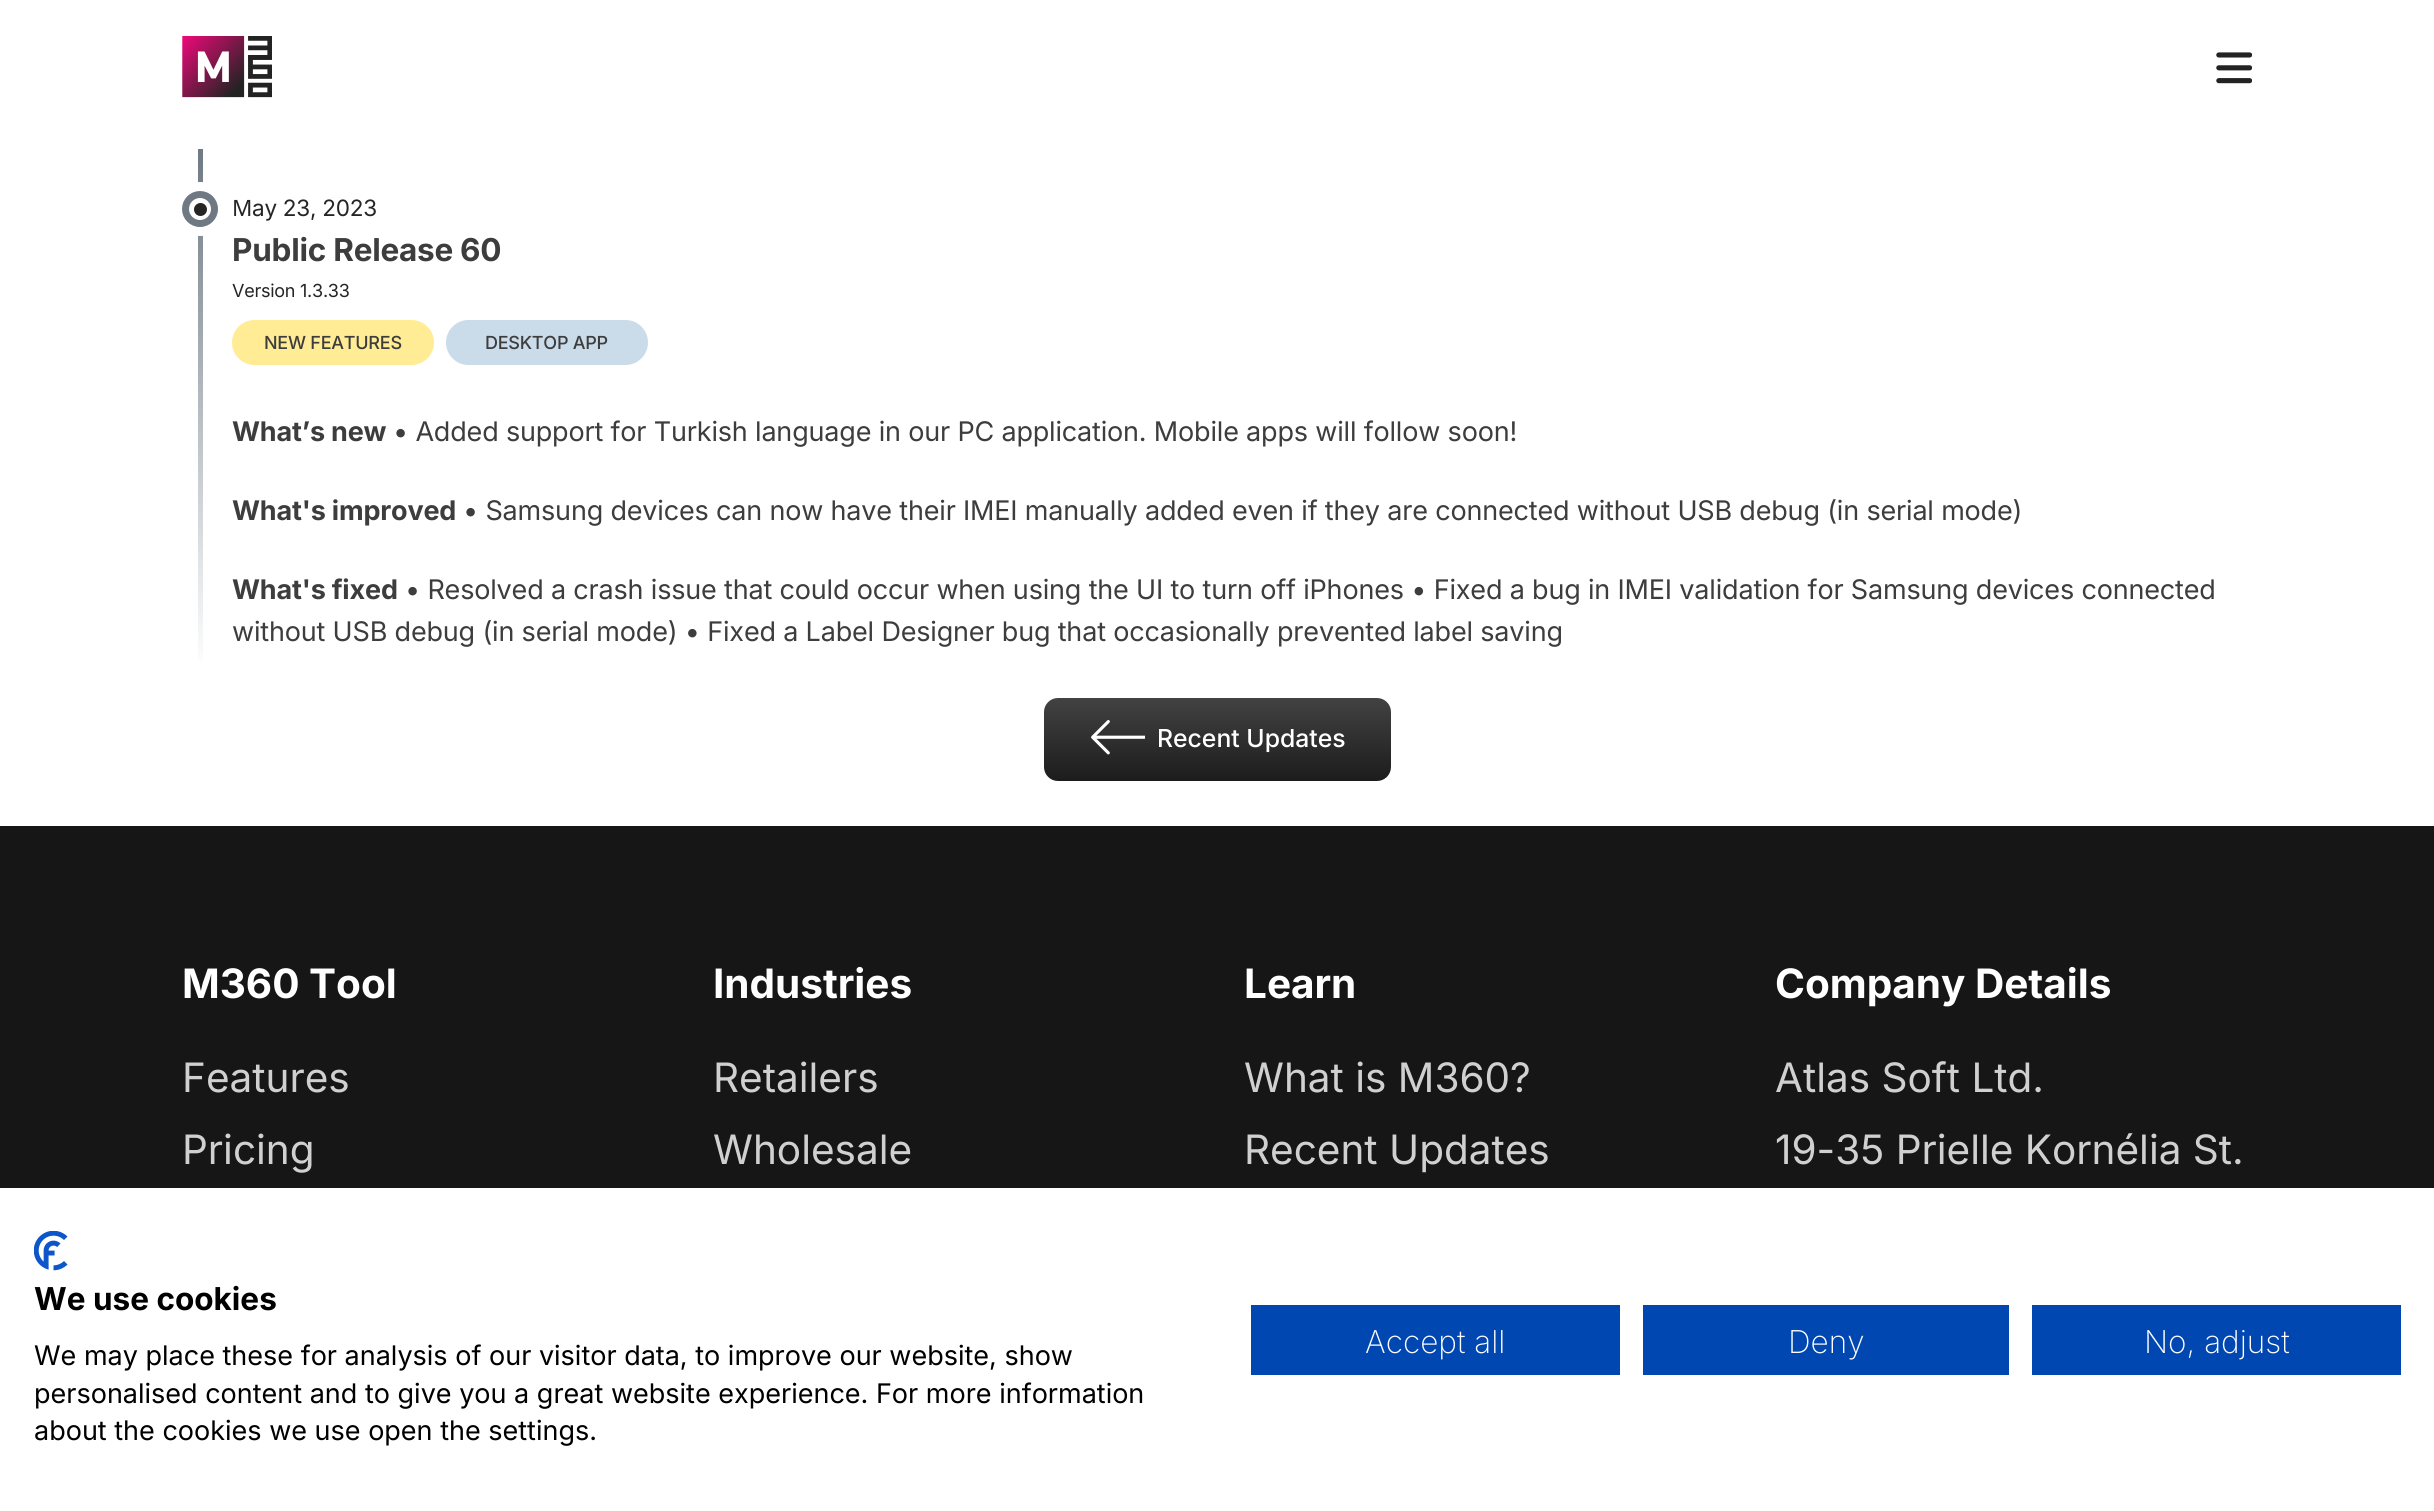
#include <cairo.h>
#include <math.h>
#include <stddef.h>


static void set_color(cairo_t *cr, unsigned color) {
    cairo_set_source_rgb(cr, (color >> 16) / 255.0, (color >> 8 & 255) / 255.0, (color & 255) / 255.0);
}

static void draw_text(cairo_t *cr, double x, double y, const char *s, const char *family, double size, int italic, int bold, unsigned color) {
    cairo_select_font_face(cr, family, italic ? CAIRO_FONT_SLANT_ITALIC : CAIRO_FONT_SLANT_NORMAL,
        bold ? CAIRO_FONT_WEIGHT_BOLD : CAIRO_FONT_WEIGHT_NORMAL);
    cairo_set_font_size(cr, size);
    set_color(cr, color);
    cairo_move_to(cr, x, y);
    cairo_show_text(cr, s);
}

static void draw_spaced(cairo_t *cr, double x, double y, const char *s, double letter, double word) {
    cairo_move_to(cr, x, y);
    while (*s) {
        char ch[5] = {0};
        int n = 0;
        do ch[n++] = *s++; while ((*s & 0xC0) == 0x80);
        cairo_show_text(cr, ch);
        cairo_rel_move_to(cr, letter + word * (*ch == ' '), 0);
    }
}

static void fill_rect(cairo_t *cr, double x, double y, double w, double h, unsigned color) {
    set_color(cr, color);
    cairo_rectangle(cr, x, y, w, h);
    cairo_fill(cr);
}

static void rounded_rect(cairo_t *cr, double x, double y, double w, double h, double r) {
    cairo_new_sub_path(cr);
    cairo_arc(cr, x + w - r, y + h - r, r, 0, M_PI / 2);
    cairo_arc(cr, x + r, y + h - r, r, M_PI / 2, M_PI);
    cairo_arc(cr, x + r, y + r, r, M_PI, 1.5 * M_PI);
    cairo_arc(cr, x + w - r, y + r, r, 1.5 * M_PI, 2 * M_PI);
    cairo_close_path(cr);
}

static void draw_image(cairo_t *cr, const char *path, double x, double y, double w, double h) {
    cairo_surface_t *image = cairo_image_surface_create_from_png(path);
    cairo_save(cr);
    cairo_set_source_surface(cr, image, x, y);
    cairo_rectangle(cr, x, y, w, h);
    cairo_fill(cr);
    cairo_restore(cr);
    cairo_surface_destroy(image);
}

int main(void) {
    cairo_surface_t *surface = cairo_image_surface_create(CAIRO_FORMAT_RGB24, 2434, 1511);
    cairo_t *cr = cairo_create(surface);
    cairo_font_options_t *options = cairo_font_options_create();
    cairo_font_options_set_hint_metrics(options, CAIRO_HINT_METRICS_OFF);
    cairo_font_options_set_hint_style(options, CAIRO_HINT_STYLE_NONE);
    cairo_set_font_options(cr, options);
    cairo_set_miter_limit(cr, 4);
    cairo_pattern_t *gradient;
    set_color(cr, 0x161616);
    cairo_paint(cr);
    fill_rect(cr, 0, 0, 2434, 826, 0xFFFFFF);
    draw_image(cr, "assets/img1.png", 182, 36, 90, 62);
    draw_image(cr, "assets/img2.png", 2216, 52, 36, 32);
    gradient = cairo_pattern_create_linear(200, 149, 200, 671);
    cairo_pattern_add_color_stop_rgba(gradient, 0, 0.431, 0.475, 0.518, 1);
    cairo_pattern_add_color_stop_rgba(gradient, 1, 1, 1, 1, 1);
    cairo_set_source(cr, gradient);
    cairo_pattern_destroy(gradient);
    cairo_rectangle(cr, 198, 149, 5, 513);
    cairo_fill(cr);
    set_color(cr, 0xFFFFFF);
    cairo_arc(cr, 200, 209, 27, 0, 2 * M_PI);
    cairo_fill(cr);
    cairo_arc(cr, 200, 209, 14.5, 0, 2 * M_PI);
    set_color(cr, 0x6E7984);
    cairo_set_line_width(cr, 7);
    cairo_stroke(cr);
    set_color(cr, 0x252525);
    cairo_arc(cr, 200.5, 209.5, 6.5, 0, 2 * M_PI);
    cairo_fill(cr);
    cairo_select_font_face(cr, "Noto Sans", CAIRO_FONT_SLANT_NORMAL, CAIRO_FONT_WEIGHT_NORMAL);
    cairo_set_font_size(cr, 22.5);
    draw_spaced(cr, 232, 216, "M", -0.25, 0);
    cairo_select_font_face(cr, "Inter", CAIRO_FONT_SLANT_NORMAL, CAIRO_FONT_WEIGHT_NORMAL);
    draw_spaced(cr, 252, 216, "ay 23, 2023", -0.25, 0);
    cairo_select_font_face(cr, "Inter", CAIRO_FONT_SLANT_NORMAL, CAIRO_FONT_WEIGHT_BOLD);
    cairo_set_font_size(cr, 31.5);
    set_color(cr, 0x3D3D3D);
    draw_spaced(cr, 232, 261, "Public Release 60", -0.25, 0);
    cairo_select_font_face(cr, "Inter", CAIRO_FONT_SLANT_NORMAL, CAIRO_FONT_WEIGHT_NORMAL);
    cairo_set_font_size(cr, 18);
    set_color(cr, 0x252525);
    draw_spaced(cr, 232, 297, "Version 1.3.33", -0.25, 0);
    set_color(cr, 0xFFEC95);
    rounded_rect(cr, 232, 320, 202, 45, 22.5);
    cairo_fill(cr);
    cairo_select_font_face(cr, "Inter Medium", CAIRO_FONT_SLANT_NORMAL, CAIRO_FONT_WEIGHT_NORMAL);
    set_color(cr, 0x3D3D3D);
    draw_spaced(cr, 264, 349, "NEW FEATURES", -0.25, 0);
    set_color(cr, 0xCADBEA);
    rounded_rect(cr, 446, 320, 202, 45, 22.5);
    cairo_fill(cr);
    set_color(cr, 0x3D3D3D);
    draw_spaced(cr, 485, 349, "DESKTOP APP", -0.25, 0);
    cairo_select_font_face(cr, "Inter", CAIRO_FONT_SLANT_NORMAL, CAIRO_FONT_WEIGHT_BOLD);
    cairo_set_font_size(cr, 27);
    draw_spaced(cr, 232, 441, "What’s new", -0.18, 0);
    cairo_select_font_face(cr, "Inter", CAIRO_FONT_SLANT_NORMAL, CAIRO_FONT_WEIGHT_NORMAL);
    draw_spaced(cr, 393, 441, "• Added support for Turkish language in our PC application. Mobile apps will follow soon!", -0.18, 0);
    cairo_select_font_face(cr, "Inter", CAIRO_FONT_SLANT_NORMAL, CAIRO_FONT_WEIGHT_BOLD);
    draw_spaced(cr, 232, 520, "What's improved", -0.18, 0);
    cairo_select_font_face(cr, "Inter", CAIRO_FONT_SLANT_NORMAL, CAIRO_FONT_WEIGHT_NORMAL);
    draw_spaced(cr, 463, 520, "• Samsung devices can now have their IMEI manually added even if they are connected without USB debug (in serial mode)", -0.18, 0);
    cairo_select_font_face(cr, "Inter", CAIRO_FONT_SLANT_NORMAL, CAIRO_FONT_WEIGHT_BOLD);
    draw_spaced(cr, 232, 599, "What's fixed", -0.18, 0);
    cairo_select_font_face(cr, "Inter", CAIRO_FONT_SLANT_NORMAL, CAIRO_FONT_WEIGHT_NORMAL);
    draw_spaced(cr, 405, 599, "• Resolved a crash issue that could occur when using the UI to turn off iPhones • Fixed a bug in IMEI validation for Samsung devices connected", -0.18, 0);
    draw_spaced(cr, 232, 641, "without USB debug (in serial mode) • Fixed a Label Designer bug that occasionally prevented label saving", -0.18, 0);
    gradient = cairo_pattern_create_linear(1217, 781, 1217, 698);
    cairo_pattern_add_color_stop_rgba(gradient, 0, 0.11, 0.11, 0.11, 1);
    cairo_pattern_add_color_stop_rgba(gradient, 1, 0.259, 0.259, 0.259, 1);
    cairo_set_source(cr, gradient);
    cairo_pattern_destroy(gradient);
    rounded_rect(cr, 1044, 698, 347, 83, 14);
    cairo_fill(cr);
    draw_image(cr, "assets/img3.png", 1091, 720, 54, 35);
    draw_text(cr, 1157, 747, "Recent Updates", "Inter Medium", 24.75, 0, 0, 0xFFFFFF);
    draw_text(cr, 182, 998, "M360 Tool", "Inter", 40.5, 0, 1, 0xFFFFFF);
    draw_text(cr, 182, 1092, "Features", "Inter", 40.5, 0, 0, 0xD0D0D0);
    draw_text(cr, 182, 1164, "Pricing", "Inter", 40.5, 0, 0, 0xD0D0D0);
    draw_text(cr, 713, 998, "Industries", "Inter", 40.5, 0, 1, 0xFFFFFF);
    draw_text(cr, 713, 1092, "Retailers", "Inter", 40.5, 0, 0, 0xD0D0D0);
    draw_text(cr, 713, 1164, "Wholesale", "Inter", 40.5, 0, 0, 0xD0D0D0);
    draw_text(cr, 1244, 998, "Learn", "Inter", 40.5, 0, 1, 0xFFFFFF);
    draw_text(cr, 1244, 1092, "What is M360?", "Inter", 40.5, 0, 0, 0xD0D0D0);
    draw_text(cr, 1244, 1164, "Recent Updates", "Inter", 40.5, 0, 0, 0xD0D0D0);
    draw_text(cr, 1775, 998, "Company Details", "Inter", 40.5, 0, 1, 0xFFFFFF);
    draw_text(cr, 1775, 1092, "Atlas Soft Ltd.", "Inter", 40.5, 0, 0, 0xD0D0D0);
    draw_text(cr, 1775, 1164, "19-35 Prielle Kornélia St.", "Inter", 40.5, 0, 0, 0xD0D0D0);
    fill_rect(cr, 0, 1188, 2434, 323, 0xFFFFFF);
    draw_image(cr, "assets/img4.png", 34, 1231, 34, 40);
    draw_text(cr, 34, 1310, "We use cookies", "Inter", 31.5, 0, 1, 0x000000);
    draw_text(cr, 34, 1365, "We may place these for analysis of our visitor data, to improve our website, show", "Inter", 27, 0, 0, 0x000000);
    draw_text(cr, 34, 1403, "personalised content and to give you a great website experience. For more information", "Inter", 27, 0, 0, 0x000000);
    draw_text(cr, 34, 1440, "about the cookies we use open the settings.", "Inter", 27, 0, 0, 0x000000);
    fill_rect(cr, 1251, 1305, 369, 70, 0x0047B2);
    draw_text(cr, 1365, 1353, "Accept all", "Inter ExtraLight", 31.5, 0, 0, 0xFFFFFF);
    fill_rect(cr, 1643, 1305, 366, 70, 0x0047B2);
    draw_text(cr, 1788, 1353, "Deny", "Inter ExtraLight", 31.5, 0, 0, 0xFFFFFF);
    fill_rect(cr, 2032, 1305, 369, 70, 0x0047B2);
    draw_text(cr, 2144, 1353, "No, adjust", "Inter ExtraLight", 31.5, 0, 0, 0xFFFFFF);
    cairo_surface_write_to_png(surface, "output.png");
    cairo_font_options_destroy(options);
    cairo_destroy(cr);
    cairo_surface_destroy(surface);
    return 0;
}
